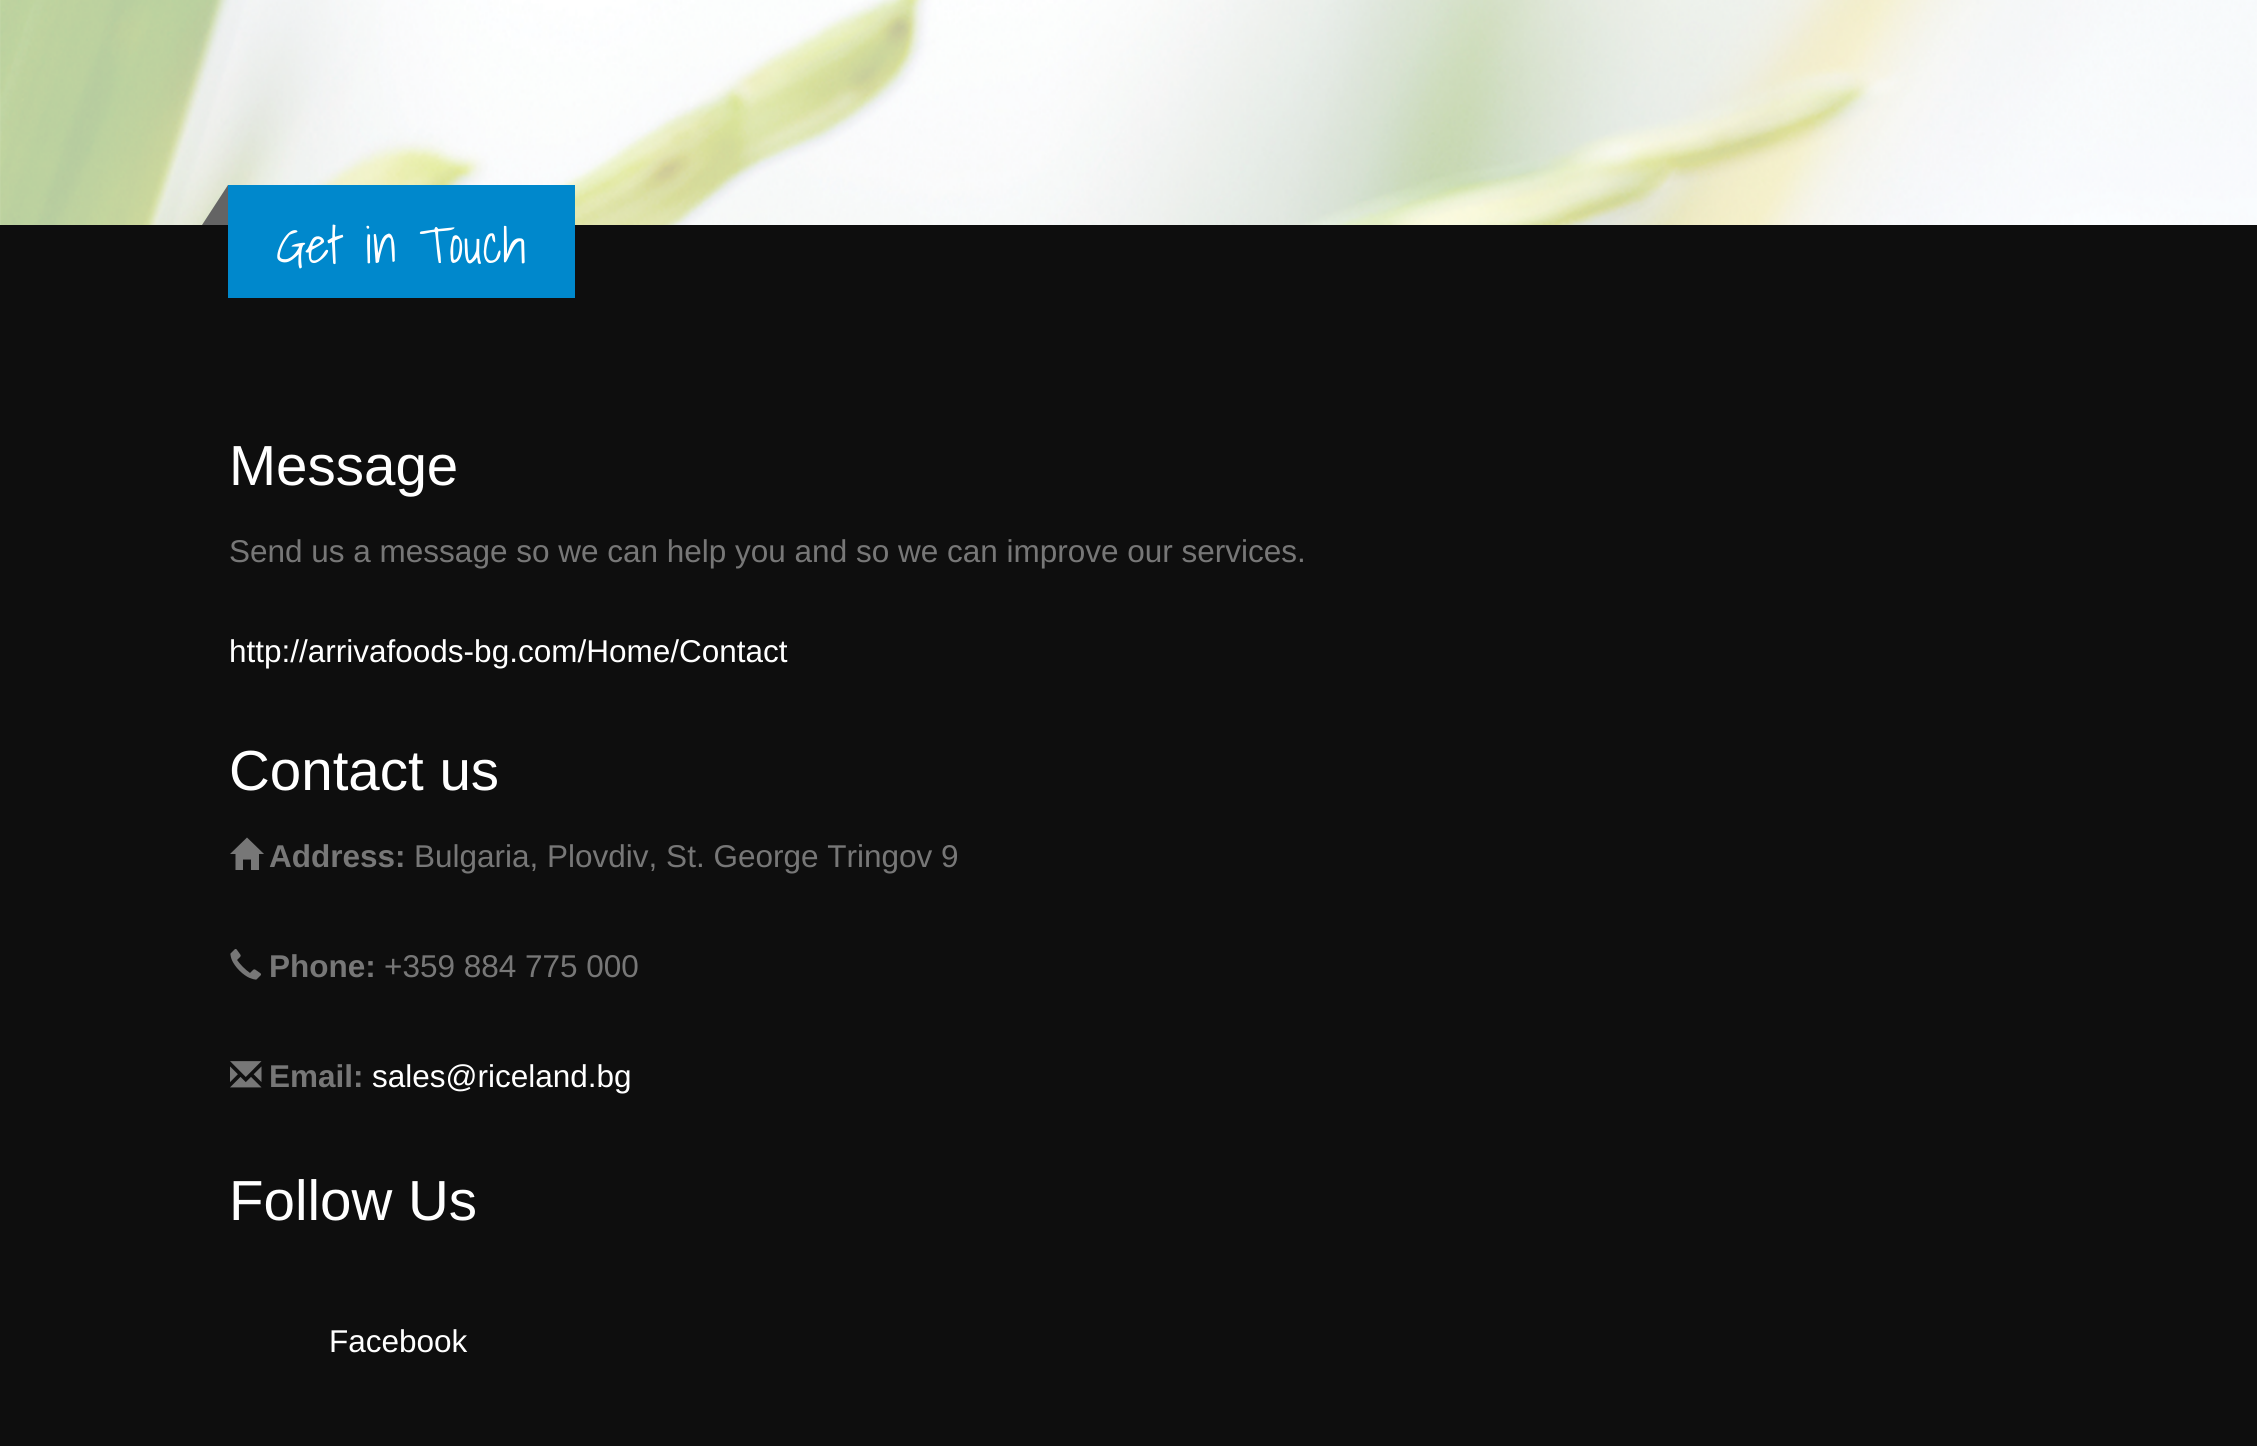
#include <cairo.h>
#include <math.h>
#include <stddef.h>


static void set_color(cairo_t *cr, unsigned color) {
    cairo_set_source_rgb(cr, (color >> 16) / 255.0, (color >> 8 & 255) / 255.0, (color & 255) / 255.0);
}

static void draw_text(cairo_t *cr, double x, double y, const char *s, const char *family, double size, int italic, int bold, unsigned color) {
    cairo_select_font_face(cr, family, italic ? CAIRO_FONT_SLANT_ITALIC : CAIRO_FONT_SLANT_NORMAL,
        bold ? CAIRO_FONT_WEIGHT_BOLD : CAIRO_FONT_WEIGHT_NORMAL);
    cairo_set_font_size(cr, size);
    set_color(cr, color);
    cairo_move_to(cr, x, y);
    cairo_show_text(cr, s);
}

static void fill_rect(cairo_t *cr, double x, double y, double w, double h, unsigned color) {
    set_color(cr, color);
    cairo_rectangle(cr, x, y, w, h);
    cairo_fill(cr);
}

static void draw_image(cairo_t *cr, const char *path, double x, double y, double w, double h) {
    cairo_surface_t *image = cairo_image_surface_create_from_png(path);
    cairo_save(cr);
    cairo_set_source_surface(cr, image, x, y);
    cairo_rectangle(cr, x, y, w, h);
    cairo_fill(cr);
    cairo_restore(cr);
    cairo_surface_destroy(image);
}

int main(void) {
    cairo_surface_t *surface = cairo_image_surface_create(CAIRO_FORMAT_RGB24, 2257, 1446);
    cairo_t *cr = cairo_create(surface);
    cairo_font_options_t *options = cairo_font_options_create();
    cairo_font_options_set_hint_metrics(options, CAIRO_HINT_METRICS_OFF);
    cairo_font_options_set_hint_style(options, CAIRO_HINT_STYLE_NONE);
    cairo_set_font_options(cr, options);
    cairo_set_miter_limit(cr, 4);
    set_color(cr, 0xFFFFFF);
    cairo_paint(cr);
    draw_image(cr, "assets/img1.png", 0, 0, 2257, 225);
    fill_rect(cr, 0, 225, 2257, 1221, 0x0E0E0E);
    fill_rect(cr, 228, 185, 347, 113, 0x0088CC);
    set_color(cr, 0x646464);
    cairo_new_path(cr);
    cairo_move_to(cr, 228, 185);
    cairo_line_to(cr, 228, 225);
    cairo_line_to(cr, 202, 225);
    cairo_close_path(cr);
    cairo_fill(cr);
    draw_text(cr, 276, 263, "Get in Touch", "Shadows Into Light", 50.5, 0, 0, 0xFFFFFF);
    draw_text(cr, 229, 485, "Message", "Liberation Sans", 56.5, 0, 0, 0xFFFFFF);
    draw_text(cr, 229, 562, "Send us a message so we can help you and so we can improve our services.", "Liberation Sans", 31.5, 0, 0, 0x777777);
    draw_text(cr, 229, 662, "http://arrivafoods-bg.com/Home/Contact", "Liberation Sans", 31.5, 0, 0, 0xFFFFFF);
    draw_text(cr, 229, 790, "Contact us", "Liberation Sans", 56.5, 0, 0, 0xFFFFFF);
    set_color(cr, 0x777777);
    cairo_new_path(cr);
    cairo_move_to(cr, 264, 854);
    cairo_line_to(cr, 259, 854);
    cairo_line_to(cr, 259, 870);
    cairo_line_to(cr, 251, 870);
    cairo_line_to(cr, 251, 859.5);
    cairo_line_to(cr, 243, 859.5);
    cairo_line_to(cr, 243, 870);
    cairo_line_to(cr, 235.5, 870);
    cairo_line_to(cr, 235.5, 854);
    cairo_line_to(cr, 230, 854);
    cairo_line_to(cr, 247, 837.5);
    cairo_close_path(cr);
    cairo_fill(cr);
    draw_text(cr, 269, 867, "Address:", "Liberation Sans", 31.5, 0, 1, 0x777777);
    draw_text(cr, 414, 867, "Bulgaria, Plovdiv, St. George Tringov 9", "Liberation Sans", 31.5, 0, 0, 0x777777);
    draw_image(cr, "assets/img2.png", 230, 949, 31, 31);
    draw_text(cr, 269, 977, "Phone:", "Liberation Sans", 31.5, 0, 1, 0x777777);
    draw_text(cr, 384, 977, "+359 884 775 000", "Liberation Sans", 31.5, 0, 0, 0x777777);
    draw_image(cr, "assets/img3.png", 230, 1061, 32, 27);
    draw_text(cr, 269, 1087, "Email:", "Liberation Sans", 31.5, 0, 1, 0x777777);
    draw_text(cr, 372, 1087, "sales@riceland.bg", "Liberation Sans", 31.5, 0, 0, 0xFFFFFF);
    draw_text(cr, 229, 1220, "Follow Us", "Liberation Sans", 56.5, 0, 0, 0xFFFFFF);
    draw_text(cr, 329, 1352, "Facebook", "Liberation Sans", 31.5, 0, 0, 0xFFFFFF);
    cairo_surface_write_to_png(surface, "output.png");
    cairo_font_options_destroy(options);
    cairo_destroy(cr);
    cairo_surface_destroy(surface);
    return 0;
}
